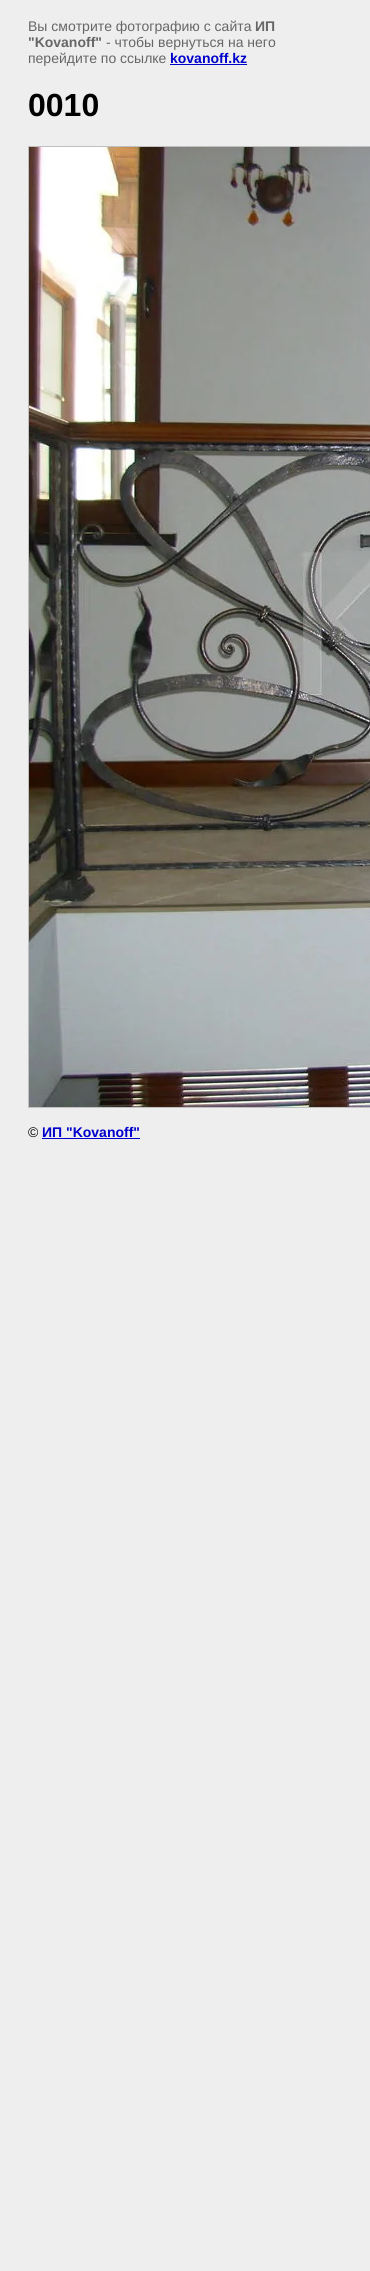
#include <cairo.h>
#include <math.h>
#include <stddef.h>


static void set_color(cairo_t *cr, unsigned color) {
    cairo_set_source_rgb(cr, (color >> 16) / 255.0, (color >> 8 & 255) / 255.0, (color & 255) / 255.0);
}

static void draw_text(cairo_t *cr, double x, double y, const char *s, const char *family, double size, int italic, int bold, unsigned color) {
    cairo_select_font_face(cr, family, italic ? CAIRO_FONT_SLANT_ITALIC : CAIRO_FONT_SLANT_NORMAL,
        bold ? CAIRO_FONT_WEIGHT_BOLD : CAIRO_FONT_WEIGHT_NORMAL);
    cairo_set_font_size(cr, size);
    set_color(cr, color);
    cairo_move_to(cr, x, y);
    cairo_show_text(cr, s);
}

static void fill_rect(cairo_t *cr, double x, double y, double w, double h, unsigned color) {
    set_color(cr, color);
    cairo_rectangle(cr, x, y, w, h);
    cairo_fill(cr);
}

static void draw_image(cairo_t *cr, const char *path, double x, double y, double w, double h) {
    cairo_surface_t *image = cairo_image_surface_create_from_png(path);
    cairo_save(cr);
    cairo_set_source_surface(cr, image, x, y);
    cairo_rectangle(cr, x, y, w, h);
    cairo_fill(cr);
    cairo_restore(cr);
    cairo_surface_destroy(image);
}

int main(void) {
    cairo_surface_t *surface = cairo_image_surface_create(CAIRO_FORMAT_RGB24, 370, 2271);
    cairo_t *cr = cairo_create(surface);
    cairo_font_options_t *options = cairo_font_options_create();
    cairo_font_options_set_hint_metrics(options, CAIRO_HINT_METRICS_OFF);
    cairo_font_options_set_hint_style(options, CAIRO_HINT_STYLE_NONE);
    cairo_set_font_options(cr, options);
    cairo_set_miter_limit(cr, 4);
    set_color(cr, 0xEEEEEE);
    cairo_paint(cr);
    draw_text(cr, 28, 31, "Вы смотрите фотографию с сайта", "Liberation Sans", 14, 0, 0, 0x666666);
    draw_text(cr, 255, 31, "ИП", "Liberation Sans", 14, 0, 1, 0x666666);
    draw_text(cr, 28, 47, "\"Kovanoff\"", "Liberation Sans", 14, 0, 1, 0x666666);
    draw_text(cr, 106, 47, "- чтобы вернуться на него", "Liberation Sans", 14, 0, 0, 0x666666);
    draw_text(cr, 28, 63, "перейдите по ссылке", "Liberation Sans", 14, 0, 0, 0x666666);
    draw_text(cr, 170, 63, "kovanoff.kz", "Liberation Sans", 14, 0, 1, 0x0000CC);
    fill_rect(cr, 170, 64, 77, 1, 0x0000CC);
    draw_text(cr, 28, 116, "0010", "Liberation Sans", 32, 0, 1, 0x000000);
    cairo_rectangle(cr, 28.5, 146.5, 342, 961);
    set_color(cr, 0xC0C0C0);
    cairo_set_line_width(cr, 1);
    cairo_stroke(cr);
    draw_image(cr, "assets/img1.png", 29, 147, 341, 960);
    draw_text(cr, 28, 1137, "©", "Liberation Sans", 14, 0, 0, 0x000000);
    draw_text(cr, 42, 1137, "ИП \"Kovanoff\"", "Liberation Sans", 14, 0, 1, 0x0000CC);
    fill_rect(cr, 42, 1138, 98, 1, 0x0000CC);
    cairo_surface_write_to_png(surface, "output.png");
    cairo_font_options_destroy(options);
    cairo_destroy(cr);
    cairo_surface_destroy(surface);
    return 0;
}
